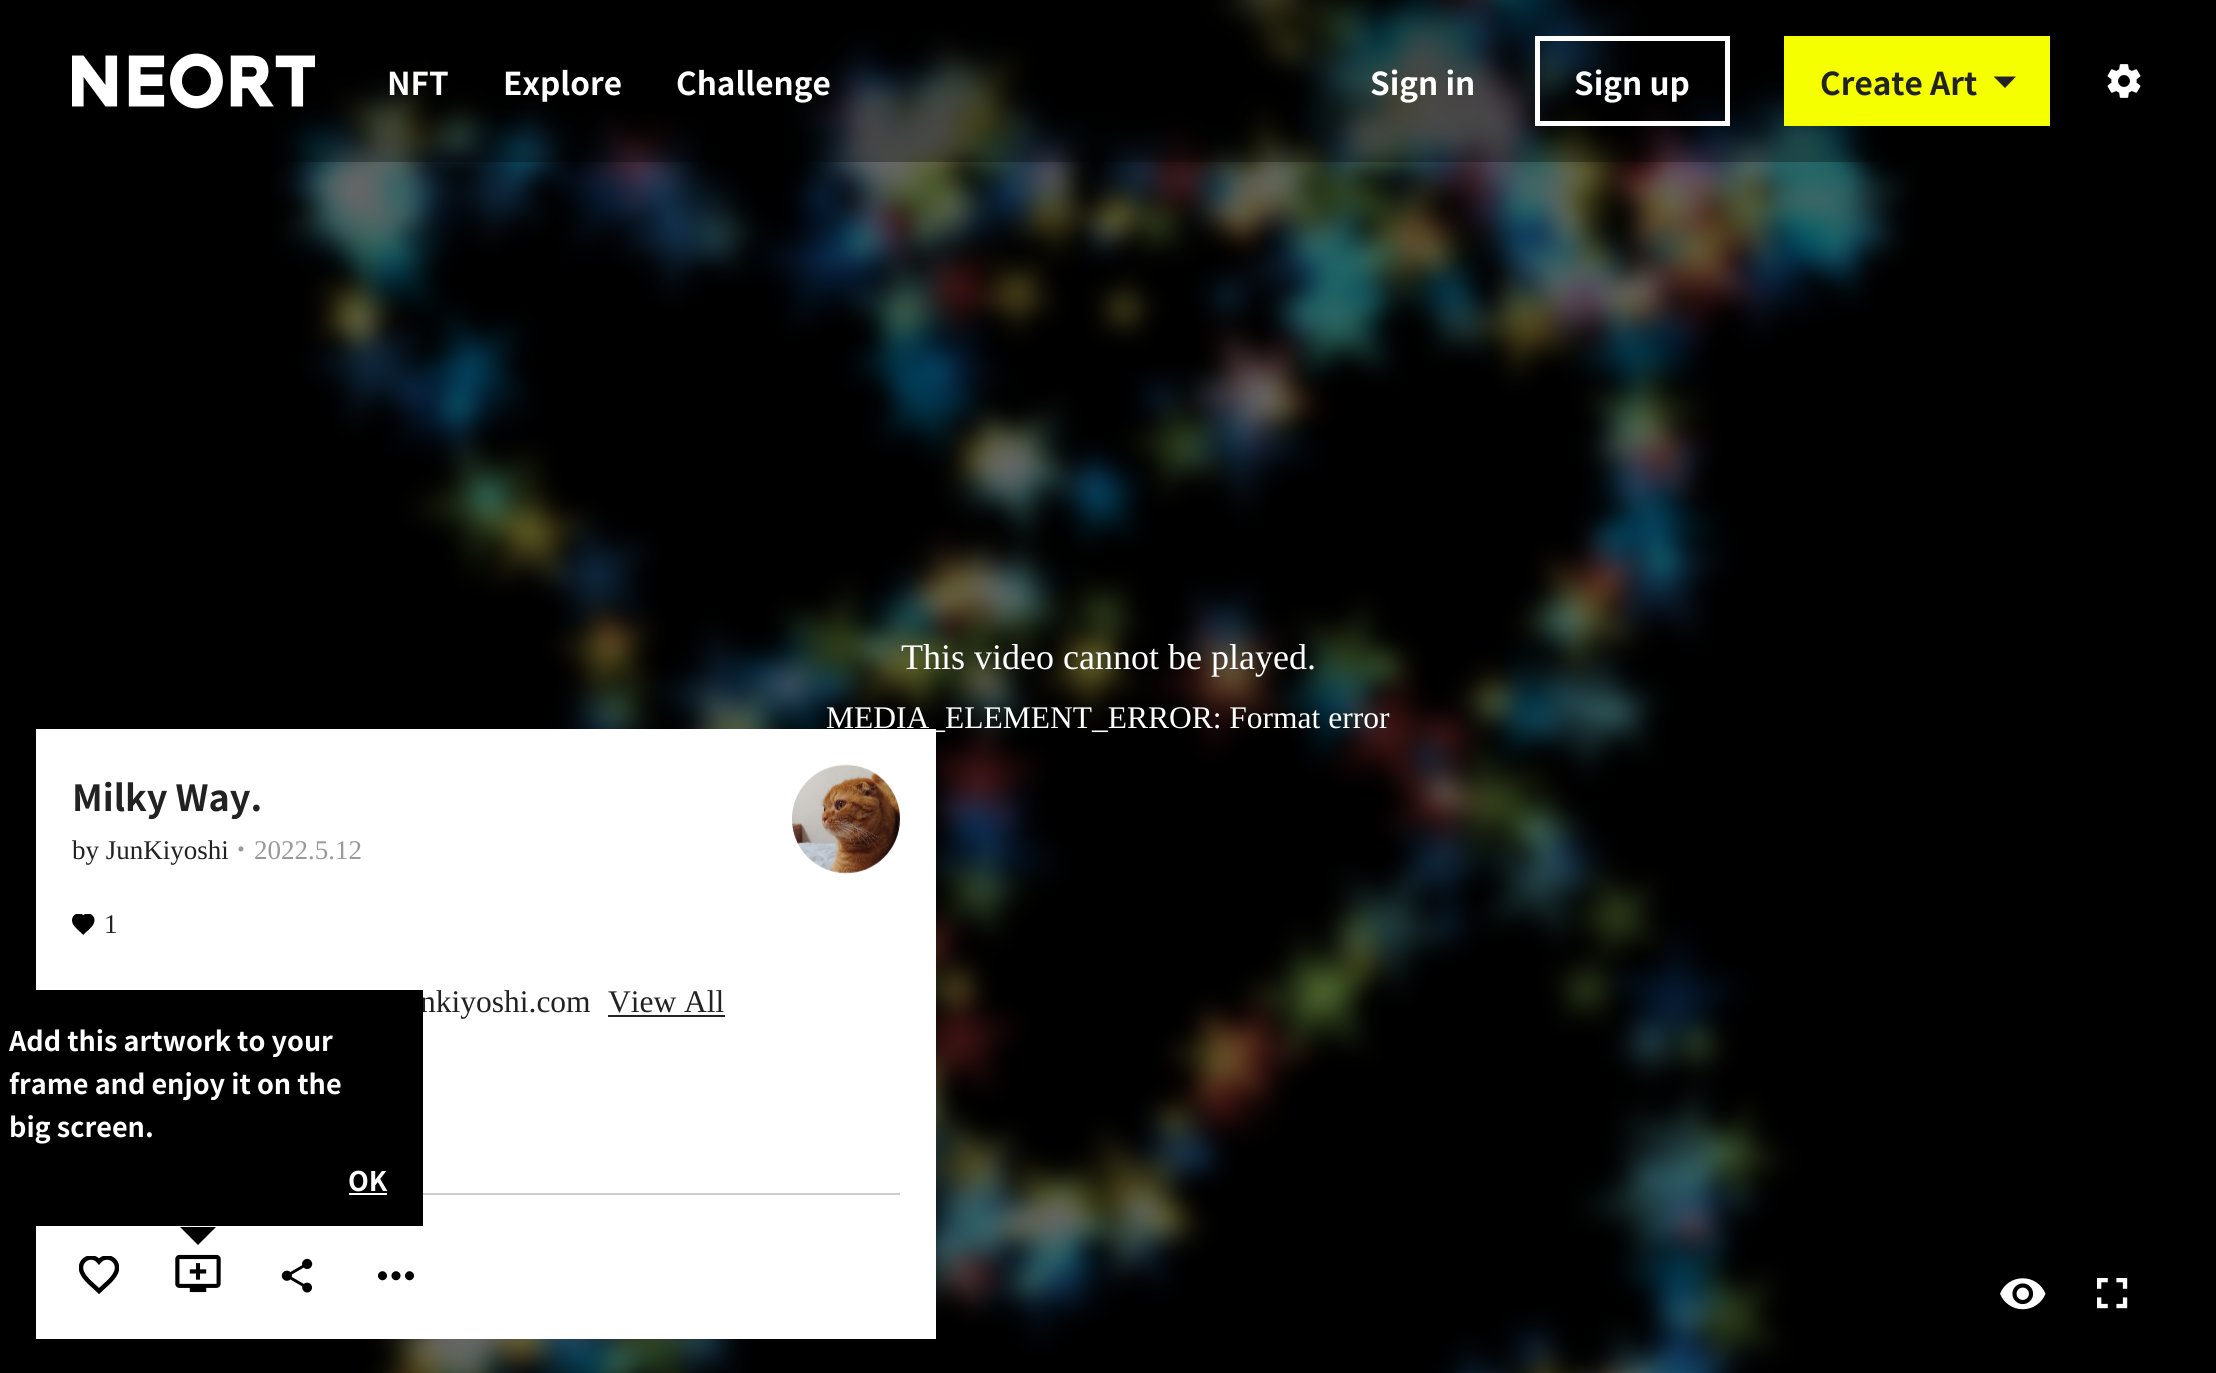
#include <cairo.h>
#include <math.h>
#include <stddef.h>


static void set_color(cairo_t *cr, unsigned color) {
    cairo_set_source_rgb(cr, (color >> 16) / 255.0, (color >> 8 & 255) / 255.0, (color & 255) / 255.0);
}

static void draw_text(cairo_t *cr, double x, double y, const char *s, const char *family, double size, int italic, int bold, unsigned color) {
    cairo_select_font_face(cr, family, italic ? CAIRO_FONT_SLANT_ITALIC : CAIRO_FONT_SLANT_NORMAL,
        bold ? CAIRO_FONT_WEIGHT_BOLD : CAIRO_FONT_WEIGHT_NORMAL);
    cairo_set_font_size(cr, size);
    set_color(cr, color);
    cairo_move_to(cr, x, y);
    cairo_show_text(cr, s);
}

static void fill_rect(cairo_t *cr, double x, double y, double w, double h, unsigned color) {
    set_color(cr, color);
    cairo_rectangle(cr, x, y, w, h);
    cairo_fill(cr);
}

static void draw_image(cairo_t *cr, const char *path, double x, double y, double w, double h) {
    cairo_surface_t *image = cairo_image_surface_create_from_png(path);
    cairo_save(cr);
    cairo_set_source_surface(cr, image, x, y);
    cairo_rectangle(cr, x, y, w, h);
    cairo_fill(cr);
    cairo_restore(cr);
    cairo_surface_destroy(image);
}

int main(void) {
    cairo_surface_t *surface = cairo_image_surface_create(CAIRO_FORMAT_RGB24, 2216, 1373);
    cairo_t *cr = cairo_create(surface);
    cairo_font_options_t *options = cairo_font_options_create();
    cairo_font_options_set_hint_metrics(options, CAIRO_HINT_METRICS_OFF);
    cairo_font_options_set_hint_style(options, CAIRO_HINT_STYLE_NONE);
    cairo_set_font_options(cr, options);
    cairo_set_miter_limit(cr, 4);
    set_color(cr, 0xFFFFFF);
    cairo_paint(cr);
    draw_image(cr, "assets/img3.png", 0, 0, 2216, 1373);
    draw_image(cr, "assets/img4.png", 271, 0, 1646, 1373);
    cairo_set_source_rgba(cr, 0, 0, 0, 0.3);
    cairo_rectangle(cr, 287, 0, 1591, 162);
    cairo_fill(cr);
    draw_image(cr, "assets/img1.png", 72, 53, 243, 56);
    draw_text(cr, 387, 95, "NFT", "Noto Sans JP", 31.5, 0, 1, 0xFFFFFF);
    draw_text(cr, 503, 95, "Explore", "Noto Sans JP", 31.5, 0, 1, 0xFFFFFF);
    draw_text(cr, 676, 95, "Challenge", "Noto Sans JP", 31.5, 0, 1, 0xFFFFFF);
    draw_text(cr, 1370, 95, "Sign in", "Noto Sans JP", 31.5, 0, 1, 0xFFFFFF);
    cairo_rectangle(cr, 1537.5, 38.5, 190, 85);
    cairo_set_line_width(cr, 5);
    cairo_stroke(cr);
    draw_text(cr, 1574, 95, "Sign up", "Noto Sans JP", 31.5, 0, 1, 0xFFFFFF);
    fill_rect(cr, 1784, 36, 266, 90, 0xF5FF00);
    draw_text(cr, 1820, 95, "Create Art", "Noto Sans JP", 31.5, 0, 1, 0x222222);
    cairo_new_path(cr);
    cairo_move_to(cr, 1993.5, 76.5);
    cairo_line_to(cr, 2016, 76.5);
    cairo_line_to(cr, 2005, 88);
    cairo_close_path(cr);
    cairo_fill(cr);
    draw_image(cr, "assets/img2.png", 2107, 64, 34, 34);
    draw_text(cr, 901, 669, "This video cannot be played.", "Liberation Serif", 36, 0, 0, 0xFFFFFF);
    draw_text(cr, 826, 728, "MEDIA_ELEMENT_ERROR: Format error", "Liberation Serif", 31.5, 0, 0, 0xFFFFFF);
    fill_rect(cr, 36, 729, 900, 610, 0xFFFFFF);
    draw_text(cr, 72, 811, "Milky Way.", "Noto Sans JP", 36, 0, 1, 0x222222);
    draw_text(cr, 72, 859, "by JunKiyoshi", "Liberation Serif", 27, 0, 0, 0x222222);
    draw_text(cr, 233, 859, "·", "Noto Sans JP", 27, 0, 1, 0x999999);
    draw_text(cr, 254, 859, "2022.5.12", "Liberation Serif", 27, 0, 0, 0x999999);
    draw_image(cr, "assets/img5.png", 792, 764, 108, 110);
    draw_image(cr, "assets/img6.png", 72, 914, 23, 21);
    draw_text(cr, 104, 933, "1", "Liberation Serif", 27, 0, 0, 0x222222);
    draw_text(cr, 420, 1012, "nkiyoshi.com", "Liberation Serif", 31.5, 0, 0, 0x222222);
    draw_text(cr, 608, 1012, "View All", "Liberation Serif", 31.5, 0, 0, 0x222222);
    fill_rect(cr, 608, 1015, 117, 2, 0x222222);
    fill_rect(cr, 423, 1193, 477, 2, 0xCCCCCC);
    fill_rect(cr, 36, 990, 387, 236, 0x000000);
    draw_text(cr, 9, 1051, "Add this artwork to your", "Noto Sans JP", 27, 0, 1, 0xFFFFFF);
    draw_text(cr, 9, 1094, "frame and enjoy it on the", "Noto Sans JP", 27, 0, 1, 0xFFFFFF);
    draw_text(cr, 9, 1137, "big screen.", "Noto Sans JP", 27, 0, 1, 0xFFFFFF);
    draw_text(cr, 348, 1191, "OK", "Noto Sans JP", 27, 0, 1, 0xFFFFFF);
    fill_rect(cr, 349, 1193, 38, 2, 0xFFFFFF);
    set_color(cr, 0x000000);
    cairo_new_path(cr);
    cairo_move_to(cr, 180, 1227);
    cairo_line_to(cr, 216, 1227);
    cairo_line_to(cr, 198, 1245);
    cairo_close_path(cr);
    cairo_fill(cr);
    draw_image(cr, "assets/img7.png", 175, 1254, 46, 39);
    cairo_save(cr);
    cairo_rectangle(cr, 79, 1256, 40, 40);
    cairo_clip(cr);
    cairo_new_path(cr);
    cairo_move_to(cr, 99, 1291);
    cairo_curve_to(cr, 93.5, 1285.5, 85.5, 1280, 82, 1272.5);
    cairo_curve_to(cr, 77, 1261, 91, 1252, 99, 1261.5);
    cairo_curve_to(cr, 107, 1252, 121, 1261, 116, 1272.5);
    cairo_curve_to(cr, 112.5, 1280, 104.5, 1285.5, 99, 1291);
    cairo_close_path(cr);
    cairo_set_line_width(cr, 4.5);
    cairo_stroke(cr);
    cairo_restore(cr);
    draw_image(cr, "assets/img8.png", 281, 1258, 32, 35);
    draw_image(cr, "assets/img9.png", 378, 1271, 36, 10);
    draw_image(cr, "assets/img10.png", 2000, 1278, 46, 32);
    draw_image(cr, "assets/img11.png", 2097, 1278, 31, 31);
    cairo_surface_write_to_png(surface, "output.png");
    cairo_font_options_destroy(options);
    cairo_destroy(cr);
    cairo_surface_destroy(surface);
    return 0;
}
